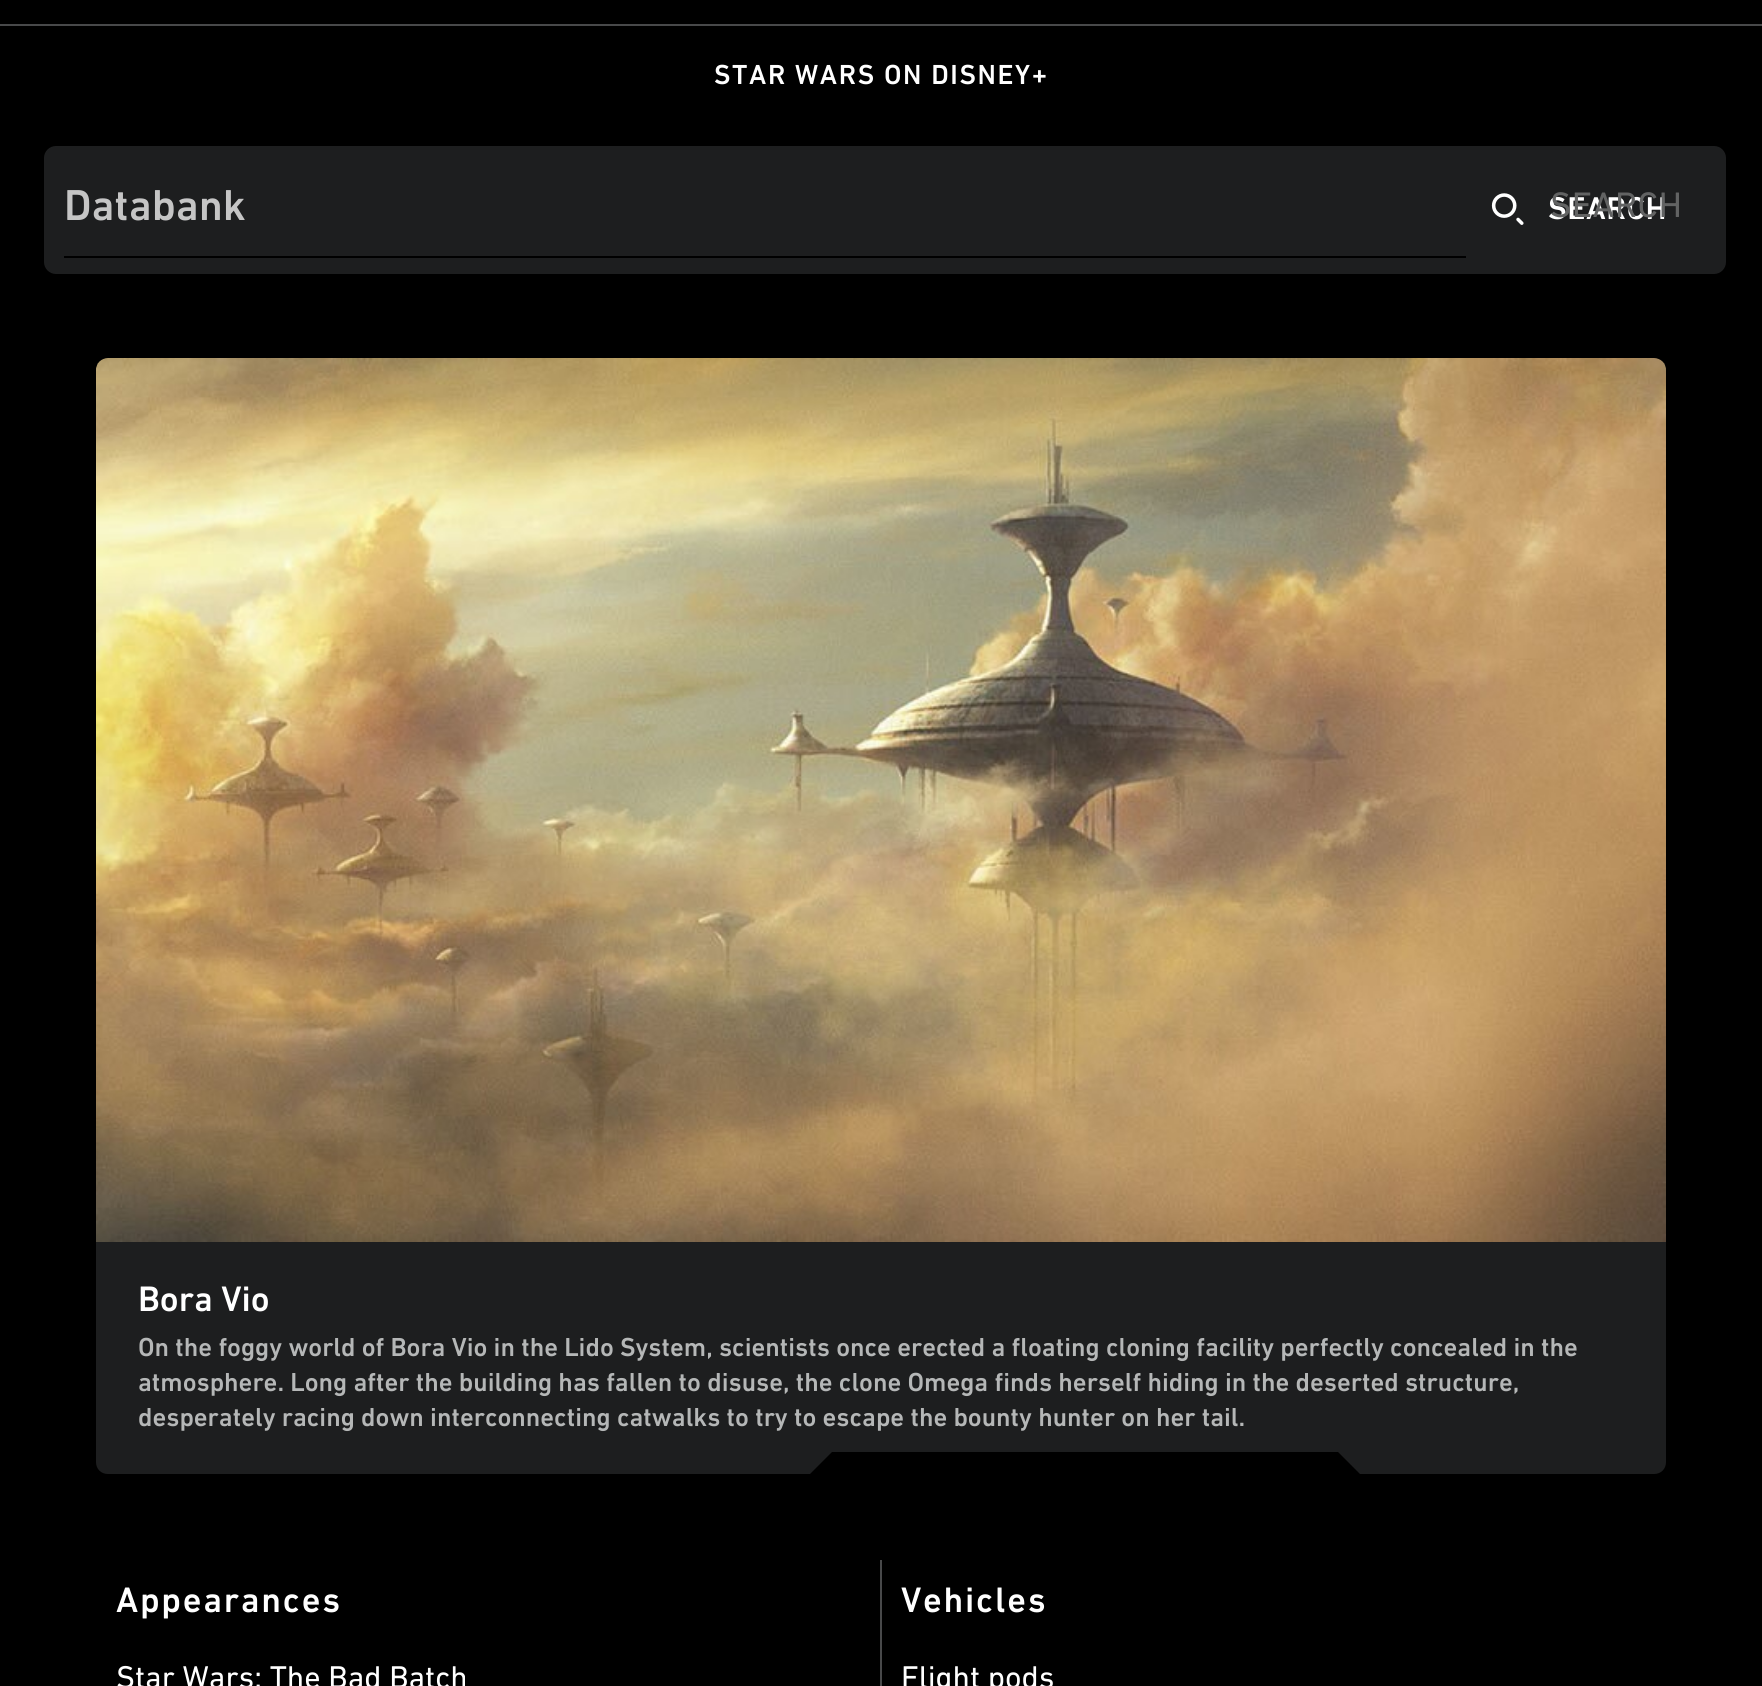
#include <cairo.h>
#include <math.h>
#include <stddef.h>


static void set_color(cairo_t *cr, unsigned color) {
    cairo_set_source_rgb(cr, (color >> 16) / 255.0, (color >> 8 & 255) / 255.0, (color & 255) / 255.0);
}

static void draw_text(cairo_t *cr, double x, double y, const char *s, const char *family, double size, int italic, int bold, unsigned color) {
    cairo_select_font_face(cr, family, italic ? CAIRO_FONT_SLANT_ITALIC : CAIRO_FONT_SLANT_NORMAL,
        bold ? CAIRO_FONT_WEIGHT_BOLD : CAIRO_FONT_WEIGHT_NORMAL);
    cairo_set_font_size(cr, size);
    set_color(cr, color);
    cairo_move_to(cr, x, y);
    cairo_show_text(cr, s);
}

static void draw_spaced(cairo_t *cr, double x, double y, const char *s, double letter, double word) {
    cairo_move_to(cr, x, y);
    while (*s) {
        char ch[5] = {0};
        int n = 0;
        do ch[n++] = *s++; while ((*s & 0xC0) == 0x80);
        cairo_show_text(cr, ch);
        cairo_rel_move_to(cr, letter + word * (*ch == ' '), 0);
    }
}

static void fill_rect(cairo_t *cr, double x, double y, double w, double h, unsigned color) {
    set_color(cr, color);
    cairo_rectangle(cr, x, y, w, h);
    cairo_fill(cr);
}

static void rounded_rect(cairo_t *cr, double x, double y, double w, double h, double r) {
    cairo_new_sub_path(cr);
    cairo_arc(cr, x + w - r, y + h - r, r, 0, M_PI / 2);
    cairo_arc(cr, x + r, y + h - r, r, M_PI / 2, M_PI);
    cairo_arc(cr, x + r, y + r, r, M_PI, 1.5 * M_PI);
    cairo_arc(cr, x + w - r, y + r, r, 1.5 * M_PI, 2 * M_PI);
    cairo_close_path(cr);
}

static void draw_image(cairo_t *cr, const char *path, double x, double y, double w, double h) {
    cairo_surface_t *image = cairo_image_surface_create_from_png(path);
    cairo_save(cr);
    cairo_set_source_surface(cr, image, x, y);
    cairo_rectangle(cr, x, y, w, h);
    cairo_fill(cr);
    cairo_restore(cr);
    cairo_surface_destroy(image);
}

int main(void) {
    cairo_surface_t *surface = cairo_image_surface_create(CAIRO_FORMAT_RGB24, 1762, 1686);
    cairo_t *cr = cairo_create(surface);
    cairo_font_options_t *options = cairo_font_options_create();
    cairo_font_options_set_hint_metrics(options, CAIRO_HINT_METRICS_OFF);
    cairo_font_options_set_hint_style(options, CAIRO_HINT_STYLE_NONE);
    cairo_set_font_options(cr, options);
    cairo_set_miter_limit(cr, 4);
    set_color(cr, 0x000000);
    cairo_paint(cr);
    fill_rect(cr, 0, 24, 1762, 2, 0x48494A);
    cairo_select_font_face(cr, "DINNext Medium", CAIRO_FONT_SLANT_NORMAL, CAIRO_FONT_WEIGHT_NORMAL);
    cairo_set_font_size(cr, 28);
    set_color(cr, 0xFFFFFF);
    draw_spaced(cr, 714, 84, "STAR WARS ON DISNEY+", 1.6, 0);
    set_color(cr, 0x1D1E1F);
    rounded_rect(cr, 44, 146, 1682, 128, 12);
    cairo_fill(cr);
    draw_text(cr, 64, 220, "Databank", "DINNext Medium", 44, 0, 0, 0xC5C5C5);
    cairo_set_font_size(cr, 32);
    set_color(cr, 0xFFFFFF);
    draw_spaced(cr, 1548, 219, "SEARCH", 0.5, 0);
    fill_rect(cr, 64, 256, 1402, 2, 0x000000);
    draw_image(cr, "assets/img1.png", 1491, 193, 33, 32);
    cairo_select_font_face(cr, "DINNext", CAIRO_FONT_SLANT_NORMAL, CAIRO_FONT_WEIGHT_NORMAL);
    cairo_set_font_size(cr, 36);
    set_color(cr, 0x626363);
    draw_spaced(cr, 1550, 217, "SEARCH", 0.5, 0);
    draw_image(cr, "assets/img2.png", 96, 358, 1570, 884);
    set_color(cr, 0x1D1E1F);
    cairo_new_path(cr);
    cairo_move_to(cr, 96, 1450);
    cairo_line_to(cr, 96, 1462);
    cairo_curve_to(cr, 96, 1469, 101, 1474, 108, 1474);
    cairo_line_to(cr, 810, 1474);
    cairo_line_to(cr, 834, 1450);
    cairo_close_path(cr);
    cairo_fill(cr);
    cairo_new_path(cr);
    cairo_move_to(cr, 1336, 1450);
    cairo_line_to(cr, 1360, 1474);
    cairo_line_to(cr, 1654, 1474);
    cairo_curve_to(cr, 1661, 1474, 1666, 1469, 1666, 1462);
    cairo_line_to(cr, 1666, 1450);
    cairo_close_path(cr);
    cairo_fill(cr);
    fill_rect(cr, 96, 1242, 1570, 210, 0x1D1E1F);
    draw_text(cr, 138, 1311, "Bora Vio", "DINNext Medium", 36, 0, 0, 0xFFFFFF);
    draw_text(cr, 138, 1356, "On the foggy world of Bora Vio in the Lido System, scientists once erected a floating cloning facility perfectly concealed in the", "DINNext Medium", 26.47, 0, 0, 0xB5B7B7);
    draw_text(cr, 138, 1391, "atmosphere. Long after the building has fallen to disuse, the clone Omega finds herself hiding in the deserted structure,", "DINNext Medium", 26.47, 0, 0, 0xB5B7B7);
    draw_text(cr, 138, 1426, "desperately racing down interconnecting catwalks to try to escape the bounty hunter on her tail.", "DINNext Medium", 26.47, 0, 0, 0xB5B7B7);
    fill_rect(cr, 880, 1560, 2, 126, 0x48494A);
    cairo_set_font_size(cr, 36);
    set_color(cr, 0xFFFFFF);
    draw_spaced(cr, 116, 1612, "Appearances", 1.75, 0);
    draw_text(cr, 116, 1688, "Star Wars: The Bad Batch", "DINNext", 32, 0, 0, 0xFFFFFF);
    cairo_select_font_face(cr, "DINNext Medium", CAIRO_FONT_SLANT_NORMAL, CAIRO_FONT_WEIGHT_NORMAL);
    cairo_set_font_size(cr, 36);
    draw_spaced(cr, 901, 1612, "Vehicles", 1.75, 0);
    draw_text(cr, 901, 1688, "Flight pods", "DINNext", 32, 0, 0, 0xFFFFFF);
    cairo_surface_write_to_png(surface, "output.png");
    cairo_font_options_destroy(options);
    cairo_destroy(cr);
    cairo_surface_destroy(surface);
    return 0;
}
